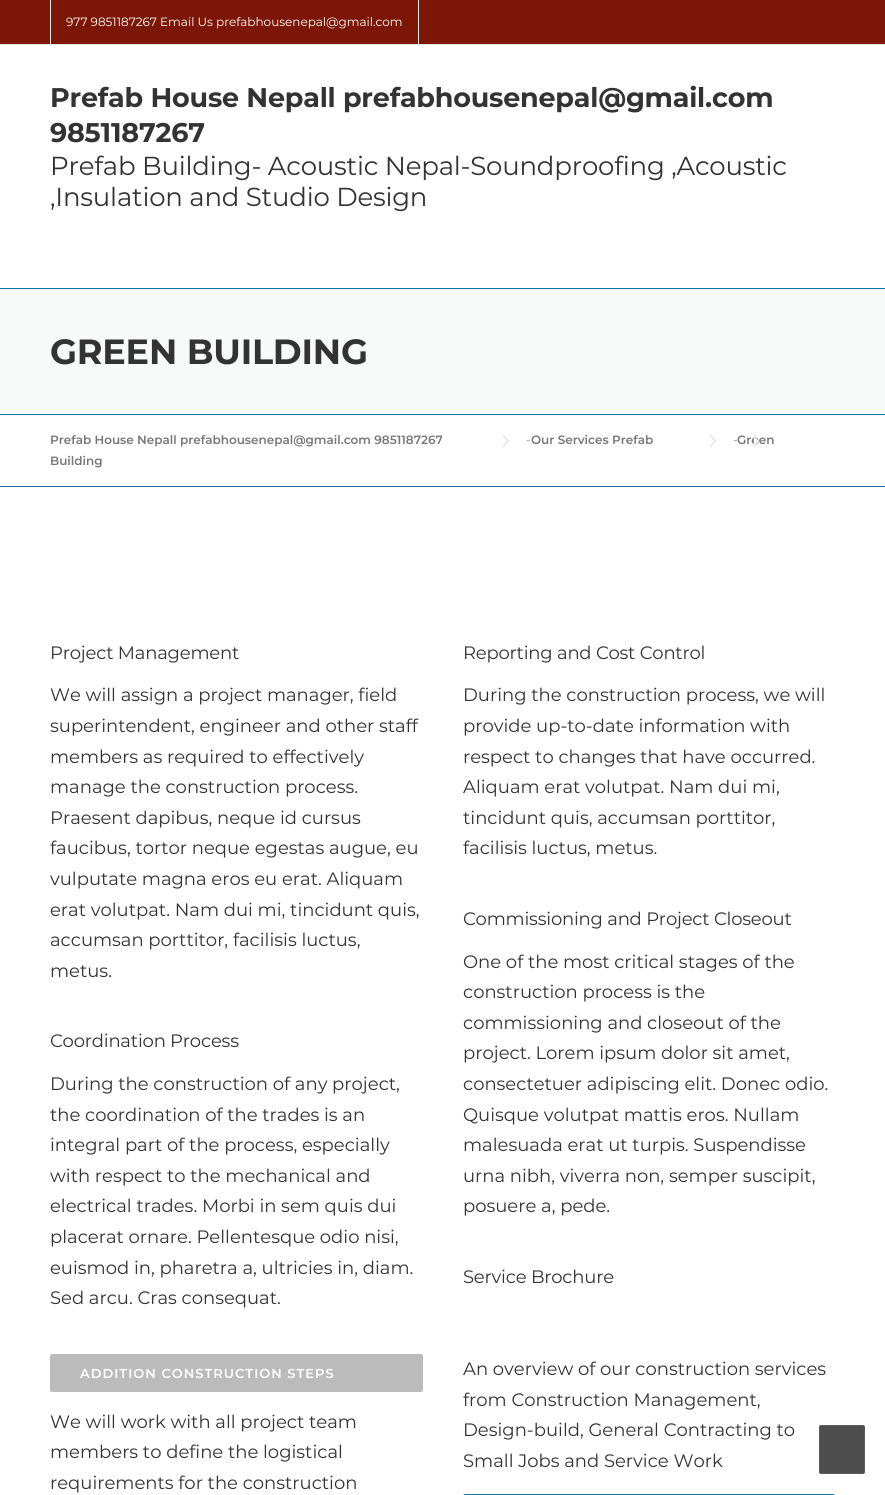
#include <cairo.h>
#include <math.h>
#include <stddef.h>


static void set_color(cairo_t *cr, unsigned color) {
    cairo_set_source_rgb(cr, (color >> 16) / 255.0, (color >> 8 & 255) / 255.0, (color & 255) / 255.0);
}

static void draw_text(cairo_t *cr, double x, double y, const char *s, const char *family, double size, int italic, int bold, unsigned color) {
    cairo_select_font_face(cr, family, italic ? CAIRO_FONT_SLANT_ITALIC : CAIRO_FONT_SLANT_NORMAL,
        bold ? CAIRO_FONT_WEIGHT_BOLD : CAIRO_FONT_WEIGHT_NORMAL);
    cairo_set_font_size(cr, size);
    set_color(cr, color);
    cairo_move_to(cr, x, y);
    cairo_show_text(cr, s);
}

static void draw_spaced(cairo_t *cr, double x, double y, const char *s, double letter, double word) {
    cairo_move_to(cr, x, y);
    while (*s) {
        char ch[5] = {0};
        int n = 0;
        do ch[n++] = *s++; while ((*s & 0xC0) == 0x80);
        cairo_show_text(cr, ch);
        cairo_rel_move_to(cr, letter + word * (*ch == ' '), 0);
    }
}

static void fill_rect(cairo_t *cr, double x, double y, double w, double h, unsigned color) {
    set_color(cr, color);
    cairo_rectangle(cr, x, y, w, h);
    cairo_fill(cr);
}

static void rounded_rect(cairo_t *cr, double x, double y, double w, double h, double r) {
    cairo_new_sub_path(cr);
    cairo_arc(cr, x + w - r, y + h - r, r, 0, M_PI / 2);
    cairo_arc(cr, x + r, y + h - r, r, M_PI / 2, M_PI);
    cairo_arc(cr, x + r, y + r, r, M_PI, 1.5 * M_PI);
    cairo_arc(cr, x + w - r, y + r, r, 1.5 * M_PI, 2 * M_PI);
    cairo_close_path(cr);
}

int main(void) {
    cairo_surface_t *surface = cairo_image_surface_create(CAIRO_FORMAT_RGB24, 885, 1495);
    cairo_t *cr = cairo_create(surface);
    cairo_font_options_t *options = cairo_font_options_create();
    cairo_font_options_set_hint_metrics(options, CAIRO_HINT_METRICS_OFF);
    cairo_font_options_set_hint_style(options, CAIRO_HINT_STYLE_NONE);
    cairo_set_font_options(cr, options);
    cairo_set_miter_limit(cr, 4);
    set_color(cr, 0xFFFFFF);
    cairo_paint(cr);
    fill_rect(cr, 0, 0, 885, 44, 0x7C1707);
    fill_rect(cr, 0, 44, 885, 1, 0xE9E9E9);
    fill_rect(cr, 418, 0, 1, 44, 0xE9E9E9);
    fill_rect(cr, 50, 0, 1, 44, 0xE9E9E9);
    draw_text(cr, 66, 26, "977 9851187267 Email Us prefabhousenepal@gmail.com", "Montserrat", 12, 0, 0, 0xFFFFFF);
    cairo_select_font_face(cr, "Montserrat", CAIRO_FONT_SLANT_NORMAL, CAIRO_FONT_WEIGHT_BOLD);
    cairo_set_font_size(cr, 27);
    set_color(cr, 0x333333);
    draw_spaced(cr, 50, 107, "Prefab House Nepall prefabhousenepal@gmail.com", -0.2, 0);
    draw_spaced(cr, 50, 142, "9851187267", -0.2, 0);
    cairo_select_font_face(cr, "Montserrat", CAIRO_FONT_SLANT_NORMAL, CAIRO_FONT_WEIGHT_NORMAL);
    cairo_set_font_size(cr, 26);
    draw_spaced(cr, 50, 175, "Prefab Building- Acoustic Nepal-Soundproofing ,Acoustic", -0.2, 0);
    draw_spaced(cr, 50, 206, ",Insulation and Studio Design", -0.2, 0);
    fill_rect(cr, 0, 289, 885, 125, 0xF8F9F9);
    fill_rect(cr, 0, 288, 885, 1, 0x1872A5);
    fill_rect(cr, 0, 414, 885, 1, 0x1872A5);
    cairo_select_font_face(cr, "Montserrat", CAIRO_FONT_SLANT_NORMAL, CAIRO_FONT_WEIGHT_BOLD);
    cairo_set_font_size(cr, 35);
    set_color(cr, 0x333333);
    draw_spaced(cr, 50, 364, "GREEN BUILDING", -0.2, 0);
    fill_rect(cr, 0, 486, 885, 1, 0x1872A5);
    draw_text(cr, 50, 444, "Prefab House Nepall prefabhousenepal@gmail.com 9851187267", "Montserrat SemiBold", 12, 0, 0, 0x777777);
    set_color(cr, 0xCCCCCC);
    cairo_new_path(cr);
    cairo_move_to(cr, 503, 447);
    cairo_line_to(cr, 503, 435);
    cairo_line_to(cr, 509, 441);
    cairo_close_path(cr);
    cairo_fill(cr);
    set_color(cr, 0xFFFFFF);
    cairo_new_path(cr);
    cairo_move_to(cr, 503, 446);
    cairo_line_to(cr, 503, 436);
    cairo_line_to(cr, 508, 441);
    cairo_close_path(cr);
    cairo_fill(cr);
    draw_text(cr, 531, 444, "Our Services Prefab", "Montserrat SemiBold", 12, 0, 0, 0x777777);
    set_color(cr, 0xCCCCCC);
    cairo_new_path(cr);
    cairo_move_to(cr, 710, 447);
    cairo_line_to(cr, 710, 435);
    cairo_line_to(cr, 716, 441);
    cairo_close_path(cr);
    cairo_fill(cr);
    set_color(cr, 0xFFFFFF);
    cairo_new_path(cr);
    cairo_move_to(cr, 710, 446);
    cairo_line_to(cr, 710, 436);
    cairo_line_to(cr, 715, 441);
    cairo_close_path(cr);
    cairo_fill(cr);
    set_color(cr, 0xCCCCCC);
    cairo_new_path(cr);
    cairo_move_to(cr, 754, 447);
    cairo_line_to(cr, 754, 435);
    cairo_line_to(cr, 760, 441);
    cairo_close_path(cr);
    cairo_fill(cr);
    draw_text(cr, 737, 444, "Green", "Montserrat SemiBold", 12, 0, 0, 0x777777);
    set_color(cr, 0xFFFFFF);
    cairo_new_path(cr);
    cairo_move_to(cr, 754, 446);
    cairo_line_to(cr, 754, 436);
    cairo_line_to(cr, 759, 441);
    cairo_close_path(cr);
    cairo_fill(cr);
    draw_text(cr, 50, 465, "Building", "Montserrat SemiBold", 12, 0, 0, 0x777777);
    draw_text(cr, 526, 444, "-", "Montserrat", 12, 0, 0, 0x858585);
    draw_text(cr, 733, 444, "-", "Montserrat", 12, 0, 0, 0x858585);
    cairo_set_font_size(cr, 18);
    set_color(cr, 0x333333);
    draw_spaced(cr, 50, 659, "Project Management", -0.2, 0);
    draw_text(cr, 50, 701, "We will assign a project manager, field", "Montserrat", 18, 0, 0, 0x333333);
    draw_text(cr, 50, 732, "superintendent, engineer and other staff", "Montserrat", 18, 0, 0, 0x333333);
    draw_text(cr, 50, 763, "members as required to effectively", "Montserrat", 18, 0, 0, 0x333333);
    draw_text(cr, 50, 793, "manage the construction process.", "Montserrat", 18, 0, 0, 0x333333);
    draw_text(cr, 50, 824, "Praesent dapibus, neque id cursus", "Montserrat", 18, 0, 0, 0x333333);
    draw_text(cr, 50, 854, "faucibus, tortor neque egestas augue, eu", "Montserrat", 18, 0, 0, 0x333333);
    draw_text(cr, 50, 885, "vulputate magna eros eu erat. Aliquam", "Montserrat", 18, 0, 0, 0x333333);
    draw_text(cr, 50, 916, "erat volutpat. Nam dui mi, tincidunt quis,", "Montserrat", 18, 0, 0, 0x333333);
    draw_text(cr, 50, 946, "accumsan porttitor, facilisis luctus,", "Montserrat", 18, 0, 0, 0x333333);
    draw_text(cr, 50, 977, "metus.", "Montserrat", 18, 0, 0, 0x333333);
    draw_spaced(cr, 50, 1047, "Coordination Process", -0.2, 0);
    draw_text(cr, 50, 1090, "During the construction of any project,", "Montserrat", 18, 0, 0, 0x333333);
    draw_text(cr, 50, 1121, "the coordination of the trades is an", "Montserrat", 18, 0, 0, 0x333333);
    draw_text(cr, 50, 1151, "integral part of the process, especially", "Montserrat", 18, 0, 0, 0x333333);
    draw_text(cr, 50, 1182, "with respect to the mechanical and", "Montserrat", 18, 0, 0, 0x333333);
    draw_text(cr, 50, 1212, "electrical trades. Morbi in sem quis dui", "Montserrat", 18, 0, 0, 0x333333);
    draw_text(cr, 50, 1243, "placerat ornare. Pellentesque odio nisi,", "Montserrat", 18, 0, 0, 0x333333);
    draw_text(cr, 50, 1274, "euismod in, pharetra a, ultricies in, diam.", "Montserrat", 18, 0, 0, 0x333333);
    draw_text(cr, 50, 1304, "Sed arcu. Cras consequat.", "Montserrat", 18, 0, 0, 0x333333);
    set_color(cr, 0xBBBBBB);
    rounded_rect(cr, 50, 1354, 373, 38, 2);
    cairo_fill(cr);
    cairo_select_font_face(cr, "Montserrat SemiBold", CAIRO_FONT_SLANT_NORMAL, CAIRO_FONT_WEIGHT_NORMAL);
    cairo_set_font_size(cr, 13);
    set_color(cr, 0xFFFFFF);
    draw_spaced(cr, 80, 1378, "ADDITION CONSTRUCTION STEPS", 1, 0);
    draw_text(cr, 50, 1428, "We will work with all project team", "Montserrat", 18, 0, 0, 0x333333);
    draw_text(cr, 50, 1458, "members to define the logistical", "Montserrat", 18, 0, 0, 0x333333);
    draw_text(cr, 50, 1489, "requirements for the construction", "Montserrat", 18, 0, 0, 0x333333);
    draw_spaced(cr, 463, 659, "Reporting and Cost Control", -0.2, 0);
    draw_text(cr, 463, 701, "During the construction process, we will", "Montserrat", 18, 0, 0, 0x333333);
    draw_text(cr, 463, 732, "provide up-to-date information with", "Montserrat", 18, 0, 0, 0x333333);
    draw_text(cr, 463, 763, "respect to changes that have occurred.", "Montserrat", 18, 0, 0, 0x333333);
    draw_text(cr, 463, 793, "Aliquam erat volutpat. Nam dui mi,", "Montserrat", 18, 0, 0, 0x333333);
    draw_text(cr, 463, 824, "tincidunt quis, accumsan porttitor,", "Montserrat", 18, 0, 0, 0x333333);
    draw_text(cr, 463, 854, "facilisis luctus, metus.", "Montserrat", 18, 0, 0, 0x333333);
    draw_spaced(cr, 463, 925, "Commissioning and Project Closeout", -0.2, 0);
    draw_text(cr, 463, 968, "One of the most critical stages of the", "Montserrat", 18, 0, 0, 0x333333);
    draw_text(cr, 463, 998, "construction process is the", "Montserrat", 18, 0, 0, 0x333333);
    draw_text(cr, 463, 1029, "commissioning and closeout of the", "Montserrat", 18, 0, 0, 0x333333);
    draw_text(cr, 463, 1059, "project. Lorem ipsum dolor sit amet,", "Montserrat", 18, 0, 0, 0x333333);
    draw_text(cr, 463, 1090, "consectetuer adipiscing elit. Donec odio.", "Montserrat", 18, 0, 0, 0x333333);
    draw_text(cr, 463, 1121, "Quisque volutpat mattis eros. Nullam", "Montserrat", 18, 0, 0, 0x333333);
    draw_text(cr, 463, 1151, "malesuada erat ut turpis. Suspendisse", "Montserrat", 18, 0, 0, 0x333333);
    draw_text(cr, 463, 1182, "urna nibh, viverra non, semper suscipit,", "Montserrat", 18, 0, 0, 0x333333);
    draw_text(cr, 463, 1212, "posuere a, pede.", "Montserrat", 18, 0, 0, 0x333333);
    draw_spaced(cr, 463, 1283, "Service Brochure", -0.2, 0);
    draw_text(cr, 463, 1375, "An overview of our construction services", "Montserrat", 18, 0, 0, 0x333333);
    draw_text(cr, 463, 1406, "from Construction Management,", "Montserrat", 18, 0, 0, 0x333333);
    draw_text(cr, 463, 1436, "Design-build, General Contracting to", "Montserrat", 18, 0, 0, 0x333333);
    draw_text(cr, 463, 1467, "Small Jobs and Service Work", "Montserrat", 18, 0, 0, 0x333333);
    rounded_rect(cr, 463.5, 1494.5, 371, 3, 1.5);
    set_color(cr, 0x1872A5);
    cairo_set_line_width(cr, 1);
    cairo_stroke(cr);
    set_color(cr, 0x4E4E4E);
    rounded_rect(cr, 819.5, 1425.5, 45, 48, 1.5);
    cairo_fill_preserve(cr);
    set_color(cr, 0x5C5C5C);
    cairo_stroke(cr);
    cairo_surface_write_to_png(surface, "output.png");
    cairo_font_options_destroy(options);
    cairo_destroy(cr);
    cairo_surface_destroy(surface);
    return 0;
}
